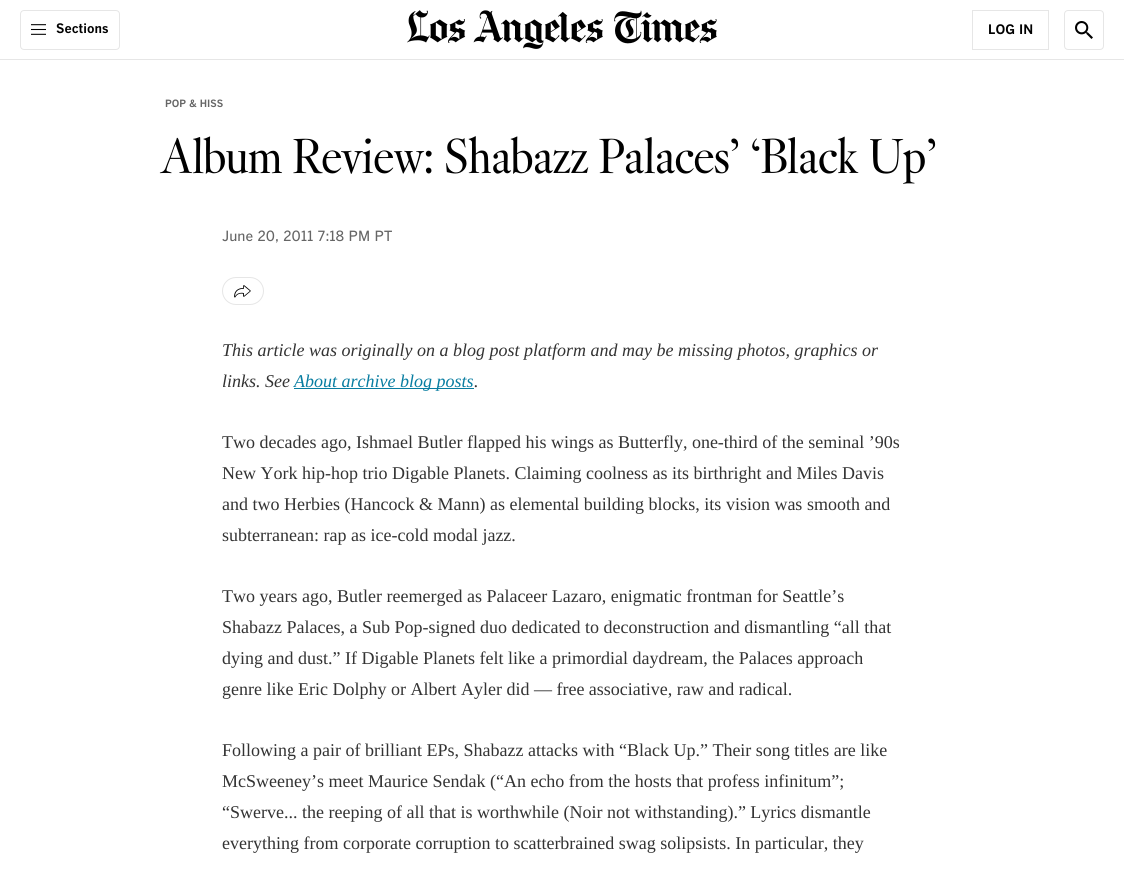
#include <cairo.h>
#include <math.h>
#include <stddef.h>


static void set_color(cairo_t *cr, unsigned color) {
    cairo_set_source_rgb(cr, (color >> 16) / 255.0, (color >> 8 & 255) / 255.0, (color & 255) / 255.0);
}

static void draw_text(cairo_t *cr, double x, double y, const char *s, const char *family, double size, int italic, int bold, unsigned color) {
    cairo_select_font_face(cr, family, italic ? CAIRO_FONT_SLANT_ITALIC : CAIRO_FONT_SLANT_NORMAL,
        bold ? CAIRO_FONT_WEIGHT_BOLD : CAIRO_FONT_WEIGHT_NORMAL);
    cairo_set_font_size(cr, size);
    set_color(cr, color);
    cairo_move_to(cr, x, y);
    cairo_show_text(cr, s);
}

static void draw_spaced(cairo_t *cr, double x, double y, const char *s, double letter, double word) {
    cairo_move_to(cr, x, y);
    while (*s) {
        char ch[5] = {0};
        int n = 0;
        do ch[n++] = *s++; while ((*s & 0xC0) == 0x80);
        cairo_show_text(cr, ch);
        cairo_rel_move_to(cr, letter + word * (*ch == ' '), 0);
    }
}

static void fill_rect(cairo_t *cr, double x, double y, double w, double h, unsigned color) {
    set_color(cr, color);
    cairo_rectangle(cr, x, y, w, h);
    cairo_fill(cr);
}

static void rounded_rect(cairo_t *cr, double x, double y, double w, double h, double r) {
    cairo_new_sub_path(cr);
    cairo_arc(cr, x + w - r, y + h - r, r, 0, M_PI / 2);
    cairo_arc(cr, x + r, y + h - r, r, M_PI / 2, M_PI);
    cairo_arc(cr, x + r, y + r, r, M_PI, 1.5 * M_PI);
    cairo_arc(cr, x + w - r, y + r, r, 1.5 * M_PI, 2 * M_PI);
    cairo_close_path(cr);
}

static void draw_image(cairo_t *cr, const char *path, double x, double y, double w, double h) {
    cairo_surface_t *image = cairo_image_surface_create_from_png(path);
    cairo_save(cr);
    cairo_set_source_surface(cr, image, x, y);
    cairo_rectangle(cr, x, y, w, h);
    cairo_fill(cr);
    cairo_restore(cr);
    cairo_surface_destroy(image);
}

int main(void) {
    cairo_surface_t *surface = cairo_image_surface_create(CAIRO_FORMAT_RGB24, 1124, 872);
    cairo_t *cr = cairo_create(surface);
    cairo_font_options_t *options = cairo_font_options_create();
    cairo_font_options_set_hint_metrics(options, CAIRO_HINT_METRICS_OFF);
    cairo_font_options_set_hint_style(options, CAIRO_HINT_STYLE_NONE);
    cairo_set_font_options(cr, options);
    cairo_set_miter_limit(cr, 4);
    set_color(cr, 0xFFFFFF);
    cairo_paint(cr);
    fill_rect(cr, 0, 59, 1124, 1, 0xE6E6E6);
    rounded_rect(cr, 20.5, 10.5, 99, 39, 3.5);
    cairo_set_line_width(cr, 1);
    cairo_stroke(cr);
    draw_image(cr, "assets/img1.png", 31, 24, 15, 11);
    draw_text(cr, 56, 33, "Sections", "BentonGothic", 13, 0, 1, 0x000000);
    draw_image(cr, "assets/img2.png", 407, 10, 310, 39);
    cairo_rectangle(cr, 972.5, 10.5, 76, 39);
    set_color(cr, 0xE6E6E6);
    cairo_stroke(cr);
    draw_text(cr, 988, 34, "LOG IN", "BentonGothic", 13, 0, 1, 0x000000);
    rounded_rect(cr, 1064.5, 10.5, 39, 39, 3.5);
    set_color(cr, 0xE6E6E6);
    cairo_stroke(cr);
    draw_image(cr, "assets/img3.png", 1075, 21, 18, 18);
    draw_text(cr, 165, 107, "POP & HISS", "BentonGothic", 10, 0, 1, 0x666666);
    cairo_select_font_face(cr, "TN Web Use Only", CAIRO_FONT_SLANT_NORMAL, CAIRO_FONT_WEIGHT_NORMAL);
    cairo_set_font_size(cr, 50);
    set_color(cr, 0x000000);
    draw_spaced(cr, 160, 173, "Album Review: Shabazz Palaces’ ‘Black Up’", -0.2, 0);
    draw_text(cr, 222, 241, "June 20, 2011 7:18 PM PT", "BentonGothic Medium", 14, 0, 0, 0x666666);
    rounded_rect(cr, 222.5, 277.5, 41, 27, 13.5);
    set_color(cr, 0xE6E6E6);
    cairo_stroke(cr);
    draw_image(cr, "assets/img4.png", 234, 285, 17, 13);
    draw_text(cr, 222, 356, "This article was originally on a blog post platform and may be missing photos, graphics or", "Liberation Serif", 18, 1, 0, 0x333333);
    draw_text(cr, 222, 387, "links. See", "Liberation Serif", 18, 1, 0, 0x333333);
    fill_rect(cr, 294, 388, 180, 1, 0x087DA1);
    draw_text(cr, 294, 387, "About archive blog posts", "Liberation Serif", 18, 1, 0, 0x087DA1);
    draw_text(cr, 474, 387, ".", "Liberation Serif", 18, 1, 0, 0x333333);
    draw_text(cr, 222, 448, "Two decades ago, Ishmael Butler flapped his wings as Butterfly, one-third of the seminal ’90s", "Liberation Serif", 18, 0, 0, 0x333333);
    draw_text(cr, 222, 479, "New York hip-hop trio Digable Planets. Claiming coolness as its birthright and Miles Davis", "Liberation Serif", 18, 0, 0, 0x333333);
    draw_text(cr, 222, 510, "and two Herbies (Hancock & Mann) as elemental building blocks, its vision was smooth and", "Liberation Serif", 18, 0, 0, 0x333333);
    draw_text(cr, 222, 541, "subterranean: rap as ice-cold modal jazz.", "Liberation Serif", 18, 0, 0, 0x333333);
    draw_text(cr, 222, 602, "Two years ago, Butler reemerged as Palaceer Lazaro, enigmatic frontman for Seattle’s", "Liberation Serif", 18, 0, 0, 0x333333);
    draw_text(cr, 222, 633, "Shabazz Palaces, a Sub Pop-signed duo dedicated to deconstruction and dismantling “all that", "Liberation Serif", 18, 0, 0, 0x333333);
    draw_text(cr, 222, 664, "dying and dust.” If Digable Planets felt like a primordial daydream, the Palaces approach", "Liberation Serif", 18, 0, 0, 0x333333);
    draw_text(cr, 222, 695, "genre like Eric Dolphy or Albert Ayler did — free associative, raw and radical.", "Liberation Serif", 18, 0, 0, 0x333333);
    draw_text(cr, 222, 756, "Following a pair of brilliant EPs, Shabazz attacks with “Black Up.” Their song titles are like", "Liberation Serif", 18, 0, 0, 0x333333);
    draw_text(cr, 222, 787, "McSweeney’s meet Maurice Sendak (“An echo from the hosts that profess infinitum”;", "Liberation Serif", 18, 0, 0, 0x333333);
    draw_text(cr, 222, 818, "“Swerve... the reeping of all that is worthwhile (Noir not withstanding).” Lyrics dismantle", "Liberation Serif", 18, 0, 0, 0x333333);
    draw_text(cr, 222, 849, "everything from corporate corruption to scatterbrained swag solipsists. In particular, they", "Liberation Serif", 18, 0, 0, 0x333333);
    cairo_surface_write_to_png(surface, "output.png");
    cairo_font_options_destroy(options);
    cairo_destroy(cr);
    cairo_surface_destroy(surface);
    return 0;
}
